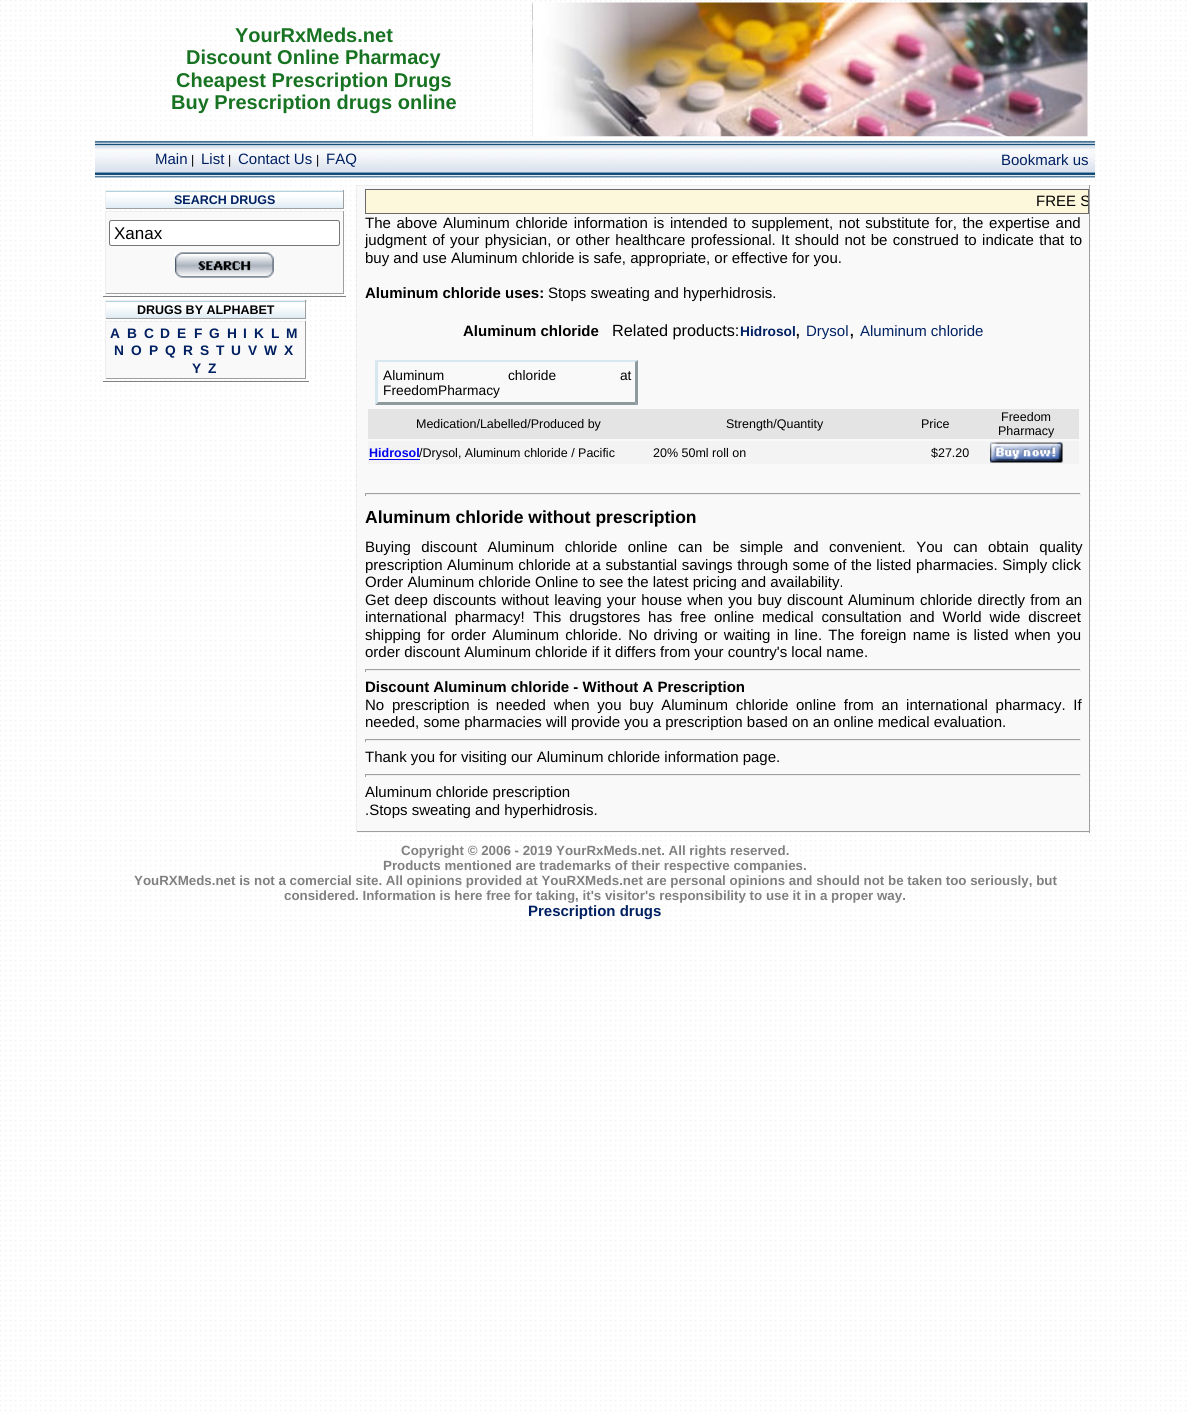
#include <cairo.h>
#include <math.h>
#include <stddef.h>


static void set_color(cairo_t *cr, unsigned color) {
    cairo_set_source_rgb(cr, (color >> 16) / 255.0, (color >> 8 & 255) / 255.0, (color & 255) / 255.0);
}

static void draw_text(cairo_t *cr, double x, double y, const char *s, const char *family, double size, int italic, int bold, unsigned color) {
    cairo_select_font_face(cr, family, italic ? CAIRO_FONT_SLANT_ITALIC : CAIRO_FONT_SLANT_NORMAL,
        bold ? CAIRO_FONT_WEIGHT_BOLD : CAIRO_FONT_WEIGHT_NORMAL);
    cairo_set_font_size(cr, size);
    set_color(cr, color);
    cairo_move_to(cr, x, y);
    cairo_show_text(cr, s);
}

static void draw_spaced(cairo_t *cr, double x, double y, const char *s, double letter, double word) {
    cairo_move_to(cr, x, y);
    while (*s) {
        char ch[5] = {0};
        int n = 0;
        do ch[n++] = *s++; while ((*s & 0xC0) == 0x80);
        cairo_show_text(cr, ch);
        cairo_rel_move_to(cr, letter + word * (*ch == ' '), 0);
    }
}

static void fill_rect(cairo_t *cr, double x, double y, double w, double h, unsigned color) {
    set_color(cr, color);
    cairo_rectangle(cr, x, y, w, h);
    cairo_fill(cr);
}

static void rounded_rect(cairo_t *cr, double x, double y, double w, double h, double r) {
    cairo_new_sub_path(cr);
    cairo_arc(cr, x + w - r, y + h - r, r, 0, M_PI / 2);
    cairo_arc(cr, x + r, y + h - r, r, M_PI / 2, M_PI);
    cairo_arc(cr, x + r, y + r, r, M_PI, 1.5 * M_PI);
    cairo_arc(cr, x + w - r, y + r, r, 1.5 * M_PI, 2 * M_PI);
    cairo_close_path(cr);
}

static void draw_image(cairo_t *cr, const char *path, double x, double y, double w, double h) {
    cairo_surface_t *image = cairo_image_surface_create_from_png(path);
    cairo_save(cr);
    cairo_set_source_surface(cr, image, x, y);
    cairo_rectangle(cr, x, y, w, h);
    cairo_fill(cr);
    cairo_restore(cr);
    cairo_surface_destroy(image);
}

int main(void) {
    cairo_surface_t *surface = cairo_image_surface_create(CAIRO_FORMAT_RGB24, 1190, 1412);
    cairo_t *cr = cairo_create(surface);
    cairo_font_options_t *options = cairo_font_options_create();
    cairo_font_options_set_hint_metrics(options, CAIRO_HINT_METRICS_OFF);
    cairo_font_options_set_hint_style(options, CAIRO_HINT_STYLE_NONE);
    cairo_set_font_options(cr, options);
    cairo_set_miter_limit(cr, 4);
    set_color(cr, 0xFFFFFF);
    cairo_paint(cr);
    draw_image(cr, "assets/img1.png", 0, 0, 1187, 1412);
    draw_text(cr, 235, 42, "YourRxMeds.net", "Liberation Sans", 20, 0, 1, 0x177322);
    draw_text(cr, 186, 64, "Discount Online Pharmacy", "Liberation Sans", 20, 0, 1, 0x177322);
    draw_text(cr, 176, 87, "Cheapest Prescription Drugs", "Liberation Sans", 20, 0, 1, 0x177322);
    draw_text(cr, 171, 109, "Buy Prescription drugs online", "Liberation Sans", 20, 0, 1, 0x177322);
    draw_image(cr, "assets/img2.png", 532, 2, 560, 135);
    fill_rect(cr, 95, 141, 1000, 37, 0xF7F7F7);
    draw_image(cr, "assets/img3.png", 95, 141, 1000, 37);
    draw_text(cr, 155, 164, "Main", "Liberation Sans", 15, 0, 0, 0x002062);
    draw_text(cr, 191, 164, "|", "Liberation Sans", 12.5, 0, 0, 0x000000);
    draw_text(cr, 201, 164, "List", "Liberation Sans", 15, 0, 0, 0x002062);
    draw_text(cr, 228, 164, "|", "Liberation Sans", 12.5, 0, 0, 0x000000);
    draw_text(cr, 238, 164, "Contact Us", "Liberation Sans", 15, 0, 0, 0x002062);
    draw_text(cr, 316, 164, "|", "Liberation Sans", 12.5, 0, 0, 0x000000);
    draw_text(cr, 326, 164, "FAQ", "Liberation Sans", 15, 0, 0, 0x002062);
    draw_text(cr, 1001, 165, "Bookmark us", "Liberation Sans", 15, 0, 0, 0x002062);
    fill_rect(cr, 103, 296, 243, 1, 0x808080);
    draw_image(cr, "assets/img4.png", 106, 191, 237, 17);
    fill_rect(cr, 105, 190, 239, 1, 0xEEEEEE);
    fill_rect(cr, 343, 190, 1, 19, 0x9F9F9F);
    fill_rect(cr, 105, 208, 239, 1, 0x9F9F9F);
    fill_rect(cr, 105, 190, 1, 19, 0xEEEEEE);
    draw_text(cr, 174, 204, "SEARCH DRUGS", "Liberation Sans", 12.5, 0, 1, 0x002062);
    fill_rect(cr, 106, 212, 237, 81, 0xF9F9F9);
    fill_rect(cr, 105, 211, 239, 1, 0xEEEEEE);
    fill_rect(cr, 343, 211, 1, 83, 0x9F9F9F);
    fill_rect(cr, 105, 293, 239, 1, 0x9F9F9F);
    fill_rect(cr, 105, 211, 1, 83, 0xEEEEEE);
    set_color(cr, 0xFFFFFF);
    rounded_rect(cr, 109.5, 220.5, 230, 25, 2);
    cairo_fill_preserve(cr);
    set_color(cr, 0x767676);
    cairo_set_line_width(cr, 1);
    cairo_stroke(cr);
    draw_text(cr, 114, 239, "Xanax", "Liberation Sans", 17, 0, 0, 0x000000);
    draw_image(cr, "assets/img5.png", 175, 252, 99, 26);
    fill_rect(cr, 103, 381, 206, 1, 0x808080);
    draw_image(cr, "assets/img6.png", 106, 300, 201, 19);
    fill_rect(cr, 105, 300, 201, 1, 0xEEEEEE);
    fill_rect(cr, 305, 300, 1, 19, 0x9F9F9F);
    fill_rect(cr, 105, 318, 201, 1, 0x9F9F9F);
    fill_rect(cr, 105, 300, 1, 19, 0xEEEEEE);
    draw_text(cr, 137, 314, "DRUGS BY ALPHABET", "Liberation Sans", 12.5, 0, 1, 0x000000);
    fill_rect(cr, 106, 322, 199, 56, 0xF9F9F9);
    fill_rect(cr, 105, 321, 201, 1, 0xEEEEEE);
    fill_rect(cr, 305, 321, 1, 58, 0x9F9F9F);
    fill_rect(cr, 105, 378, 201, 1, 0x9F9F9F);
    fill_rect(cr, 105, 321, 1, 58, 0xEEEEEE);
    draw_text(cr, 110, 338, "A", "Liberation Sans", 13.75, 0, 1, 0x002062);
    draw_text(cr, 127, 338, "B", "Liberation Sans", 13.75, 0, 1, 0x002062);
    draw_text(cr, 144, 338, "C", "Liberation Sans", 13.75, 0, 1, 0x002062);
    draw_text(cr, 160, 338, "D", "Liberation Sans", 13.75, 0, 1, 0x002062);
    draw_text(cr, 177, 338, "E", "Liberation Sans", 13.75, 0, 1, 0x002062);
    draw_text(cr, 194, 338, "F", "Liberation Sans", 13.75, 0, 1, 0x002062);
    draw_text(cr, 209, 338, "G", "Liberation Sans", 13.75, 0, 1, 0x002062);
    draw_text(cr, 227, 338, "H", "Liberation Sans", 13.75, 0, 1, 0x002062);
    draw_text(cr, 243, 338, "I", "Liberation Sans", 13.75, 0, 1, 0x002062);
    draw_text(cr, 254, 338, "K", "Liberation Sans", 13.75, 0, 1, 0x002062);
    draw_text(cr, 271, 338, "L", "Liberation Sans", 13.75, 0, 1, 0x002062);
    draw_text(cr, 286, 338, "M", "Liberation Sans", 13.75, 0, 1, 0x002062);
    draw_text(cr, 114, 355, "N", "Liberation Sans", 13.75, 0, 1, 0x002062);
    draw_text(cr, 131, 355, "O", "Liberation Sans", 13.75, 0, 1, 0x002062);
    draw_text(cr, 149, 355, "P", "Liberation Sans", 13.75, 0, 1, 0x002062);
    draw_text(cr, 165, 355, "Q", "Liberation Sans", 13.75, 0, 1, 0x002062);
    draw_text(cr, 183, 355, "R", "Liberation Sans", 13.75, 0, 1, 0x002062);
    draw_text(cr, 200, 355, "S", "Liberation Sans", 13.75, 0, 1, 0x002062);
    draw_text(cr, 216, 355, "T", "Liberation Sans", 13.75, 0, 1, 0x002062);
    draw_text(cr, 231, 355, "U", "Liberation Sans", 13.75, 0, 1, 0x002062);
    draw_text(cr, 248, 355, "V", "Liberation Sans", 13.75, 0, 1, 0x002062);
    draw_text(cr, 264, 355, "W", "Liberation Sans", 13.75, 0, 1, 0x002062);
    draw_text(cr, 284, 355, "X", "Liberation Sans", 13.75, 0, 1, 0x002062);
    draw_text(cr, 192, 373, "Y", "Liberation Sans", 13.75, 0, 1, 0x002062);
    draw_text(cr, 208, 373, "Z", "Liberation Sans", 13.75, 0, 1, 0x002062);
    fill_rect(cr, 357, 186, 732, 647, 0xF9F9F9);
    fill_rect(cr, 356, 185, 734, 1, 0xEEEEEE);
    fill_rect(cr, 1089, 185, 1, 648, 0x9F9F9F);
    fill_rect(cr, 356, 831, 734, 1, 0x9F9F9F);
    fill_rect(cr, 356, 185, 1, 648, 0xEEEEEE);
    set_color(cr, 0xFDF8DB);
    cairo_rectangle(cr, 365.5, 189.5, 723, 24);
    cairo_fill_preserve(cr);
    set_color(cr, 0x696969);
    cairo_stroke(cr);
    cairo_save(cr);
    cairo_rectangle(cr, 366, 190, 722, 23);
    cairo_clip(cr);
    draw_text(cr, 1036, 206, "FREE S", "Liberation Sans", 15, 0, 0, 0x000000);
    cairo_restore(cr);
    cairo_select_font_face(cr, "Liberation Sans", CAIRO_FONT_SLANT_NORMAL, CAIRO_FONT_WEIGHT_NORMAL);
    cairo_set_font_size(cr, 15);
    set_color(cr, 0x000000);
    draw_spaced(cr, 365, 228, "The above Aluminum chloride information is intended to supplement, not substitute for, the expertise and", 0, 1.5);
    draw_spaced(cr, 365, 245, "judgment of your physician, or other healthcare professional. It should not be construed to indicate that to", 0, 1.25);
    draw_text(cr, 365, 263, "buy and use Aluminum chloride is safe, appropriate, or effective for you.", "Liberation Sans", 15, 0, 0, 0x000000);
    draw_text(cr, 365, 298, "Aluminum chloride uses:", "Liberation Sans", 15, 0, 1, 0x000000);
    draw_text(cr, 548, 298, "Stops sweating and hyperhidrosis.", "Liberation Sans", 15, 0, 0, 0x000000);
    draw_text(cr, 463, 336, "Aluminum chloride", "Liberation Sans", 15, 0, 1, 0x000000);
    draw_text(cr, 612, 336, "Related products:", "Liberation Sans", 16.25, 0, 0, 0x000000);
    draw_text(cr, 740, 336, "Hidrosol", "Liberation Sans", 13.75, 0, 1, 0x002062);
    draw_text(cr, 795, 336, ",", "Liberation Sans", 20, 0, 0, 0x000000);
    draw_text(cr, 806, 336, "Drysol", "Liberation Sans", 15, 0, 0, 0x002062);
    draw_text(cr, 849, 336, ",", "Liberation Sans", 20, 0, 0, 0x000000);
    draw_text(cr, 860, 336, "Aluminum chloride", "Liberation Sans", 15, 0, 0, 0x002062);
    set_color(cr, 0xD6E7EF);
    cairo_new_path(cr);
    cairo_move_to(cr, 375, 360);
    cairo_line_to(cr, 638, 360);
    cairo_line_to(cr, 635, 362);
    cairo_line_to(cr, 378, 362);
    cairo_close_path(cr);
    cairo_fill(cr);
    set_color(cr, 0x8F9A9F);
    cairo_new_path(cr);
    cairo_move_to(cr, 638, 360);
    cairo_line_to(cr, 638, 405);
    cairo_line_to(cr, 635, 402);
    cairo_line_to(cr, 635, 362);
    cairo_close_path(cr);
    cairo_fill(cr);
    cairo_new_path(cr);
    cairo_move_to(cr, 638, 405);
    cairo_line_to(cr, 375, 405);
    cairo_line_to(cr, 378, 402);
    cairo_line_to(cr, 635, 402);
    cairo_close_path(cr);
    cairo_fill(cr);
    set_color(cr, 0xD6E7EF);
    cairo_new_path(cr);
    cairo_move_to(cr, 375, 405);
    cairo_line_to(cr, 375, 360);
    cairo_line_to(cr, 378, 362);
    cairo_line_to(cr, 378, 402);
    cairo_close_path(cr);
    cairo_fill(cr);
    cairo_set_font_size(cr, 13.75);
    set_color(cr, 0x000000);
    draw_spaced(cr, 383, 380, "Aluminum chloride at", 0, 60);
    draw_text(cr, 383, 395, "FreedomPharmacy", "Liberation Sans", 13.75, 0, 0, 0x000000);
    fill_rect(cr, 368, 409, 711, 30, 0xE4E4E4);
    draw_text(cr, 416, 428, "Medication/Labelled/Produced by", "Liberation Sans", 12.5, 0, 0, 0x000000);
    draw_text(cr, 726, 428, "Strength/Quantity", "Liberation Sans", 12.5, 0, 0, 0x000000);
    draw_text(cr, 921, 428, "Price", "Liberation Sans", 12.5, 0, 0, 0x000000);
    draw_text(cr, 1001, 421, "Freedom", "Liberation Sans", 12.5, 0, 0, 0x000000);
    draw_text(cr, 998, 435, "Pharmacy", "Liberation Sans", 12.5, 0, 0, 0x000000);
    fill_rect(cr, 368, 441, 711, 23, 0xF3F3F3);
    draw_text(cr, 369, 457, "Hidrosol", "Liberation Sans", 12.5, 0, 1, 0x0000EE);
    fill_rect(cr, 369, 459, 51, 1, 0x0000EE);
    draw_text(cr, 419, 457, "/Drysol, Aluminum chloride / Pacific", "Liberation Sans", 12.5, 0, 0, 0x000000);
    draw_text(cr, 653, 457, "20% 50ml roll on", "Liberation Sans", 12.5, 0, 0, 0x000000);
    draw_text(cr, 931, 457, "$27.20", "Liberation Sans", 12.5, 0, 0, 0x000000);
    draw_image(cr, "assets/img7.png", 990, 442, 73, 21);
    fill_rect(cr, 365, 493, 716, 1, 0x9F9F9F);
    fill_rect(cr, 1080, 493, 1, 3, 0xEEEEEE);
    fill_rect(cr, 365, 494, 716, 1, 0xEEEEEE);
    fill_rect(cr, 365, 493, 1, 3, 0x9F9F9F);
    draw_text(cr, 365, 523, "Aluminum chloride without prescription", "Liberation Sans", 17.5, 0, 1, 0x000000);
    cairo_select_font_face(cr, "Liberation Sans", CAIRO_FONT_SLANT_NORMAL, CAIRO_FONT_WEIGHT_NORMAL);
    cairo_set_font_size(cr, 15);
    draw_spaced(cr, 365, 552, "Buying discount Aluminum chloride online can be simple and convenient. You can obtain quality", 0, 6.25);
    draw_spaced(cr, 365, 570, "prescription Aluminum chloride at a substantial savings through some of the listed pharmacies. Simply click", 0, 0.4);
    draw_text(cr, 365, 587, "Order Aluminum chloride Online to see the latest pricing and availability.", "Liberation Sans", 15, 0, 0, 0x000000);
    draw_spaced(cr, 365, 605, "Get deep discounts without leaving your house when you buy discount Aluminum chloride directly from an", 0, 1);
    draw_spaced(cr, 365, 622, "international pharmacy!", 0, 3.75);
    draw_spaced(cr, 533, 622, "This drugstores has free online medical consultation and World wide discreet", 0, 3.75);
    draw_spaced(cr, 365, 640, "shipping for order Aluminum chloride. No driving or waiting in line. The foreign name is listed when you", 0, 2.1);
    draw_text(cr, 365, 657, "order discount Aluminum chloride if it differs from your country's local name.", "Liberation Sans", 15, 0, 0, 0x000000);
    fill_rect(cr, 365, 669, 716, 1, 0x9F9F9F);
    fill_rect(cr, 1080, 669, 1, 3, 0xEEEEEE);
    fill_rect(cr, 365, 670, 716, 1, 0xEEEEEE);
    fill_rect(cr, 365, 669, 1, 3, 0x9F9F9F);
    draw_text(cr, 365, 692, "Discount Aluminum chloride - Without A Prescription", "Liberation Sans", 15, 0, 1, 0x000000);
    cairo_select_font_face(cr, "Liberation Sans", CAIRO_FONT_SLANT_NORMAL, CAIRO_FONT_WEIGHT_NORMAL);
    draw_spaced(cr, 365, 710, "No prescription is needed when you buy Aluminum chloride online from an international pharmacy. If", 0, 3.6);
    draw_text(cr, 365, 727, "needed, some pharmacies will provide you a prescription based on an online medical evaluation.", "Liberation Sans", 15, 0, 0, 0x000000);
    fill_rect(cr, 365, 739, 716, 1, 0x9F9F9F);
    fill_rect(cr, 1080, 739, 1, 3, 0xEEEEEE);
    fill_rect(cr, 365, 740, 716, 1, 0xEEEEEE);
    fill_rect(cr, 365, 739, 1, 3, 0x9F9F9F);
    draw_text(cr, 365, 762, "Thank you for visiting our Aluminum chloride information page.", "Liberation Sans", 15, 0, 0, 0x000000);
    fill_rect(cr, 365, 774, 716, 1, 0x9F9F9F);
    fill_rect(cr, 1080, 774, 1, 3, 0xEEEEEE);
    fill_rect(cr, 365, 775, 716, 1, 0xEEEEEE);
    fill_rect(cr, 365, 774, 1, 3, 0x9F9F9F);
    draw_text(cr, 365, 797, "Aluminum chloride prescription", "Liberation Sans", 15, 0, 0, 0x000000);
    draw_text(cr, 365, 815, ".Stops sweating and hyperhidrosis.", "Liberation Sans", 15, 0, 0, 0x000000);
    draw_text(cr, 401, 855, "Copyright © 2006 - 2019 YourRxMeds.net. All rights reserved.", "Liberation Sans", 13.33, 0, 1, 0x808080);
    draw_text(cr, 383, 870, "Products mentioned are trademarks of their respective companies.", "Liberation Sans", 13.33, 0, 1, 0x808080);
    draw_text(cr, 134, 885, "YouRXMeds.net is not a comercial site. All opinions provided at YouRXMeds.net are personal opinions and should not be taken too seriously, but", "Liberation Sans", 13.33, 0, 1, 0x808080);
    draw_text(cr, 284, 900, "considered. Information is here free for taking, it's visitor's responsibility to use it in a proper way.", "Liberation Sans", 13.33, 0, 1, 0x808080);
    draw_text(cr, 528, 916, "Prescription drugs", "Liberation Sans", 15, 0, 1, 0x002062);
    cairo_surface_write_to_png(surface, "output.png");
    cairo_font_options_destroy(options);
    cairo_destroy(cr);
    cairo_surface_destroy(surface);
    return 0;
}
